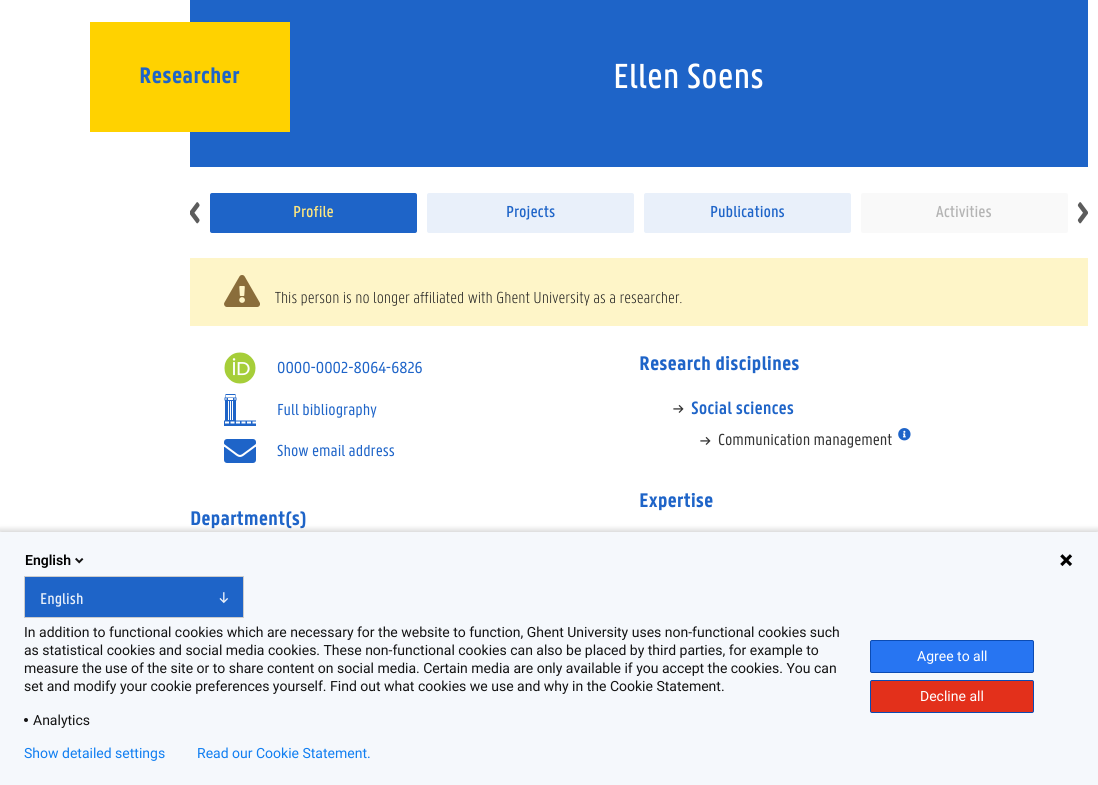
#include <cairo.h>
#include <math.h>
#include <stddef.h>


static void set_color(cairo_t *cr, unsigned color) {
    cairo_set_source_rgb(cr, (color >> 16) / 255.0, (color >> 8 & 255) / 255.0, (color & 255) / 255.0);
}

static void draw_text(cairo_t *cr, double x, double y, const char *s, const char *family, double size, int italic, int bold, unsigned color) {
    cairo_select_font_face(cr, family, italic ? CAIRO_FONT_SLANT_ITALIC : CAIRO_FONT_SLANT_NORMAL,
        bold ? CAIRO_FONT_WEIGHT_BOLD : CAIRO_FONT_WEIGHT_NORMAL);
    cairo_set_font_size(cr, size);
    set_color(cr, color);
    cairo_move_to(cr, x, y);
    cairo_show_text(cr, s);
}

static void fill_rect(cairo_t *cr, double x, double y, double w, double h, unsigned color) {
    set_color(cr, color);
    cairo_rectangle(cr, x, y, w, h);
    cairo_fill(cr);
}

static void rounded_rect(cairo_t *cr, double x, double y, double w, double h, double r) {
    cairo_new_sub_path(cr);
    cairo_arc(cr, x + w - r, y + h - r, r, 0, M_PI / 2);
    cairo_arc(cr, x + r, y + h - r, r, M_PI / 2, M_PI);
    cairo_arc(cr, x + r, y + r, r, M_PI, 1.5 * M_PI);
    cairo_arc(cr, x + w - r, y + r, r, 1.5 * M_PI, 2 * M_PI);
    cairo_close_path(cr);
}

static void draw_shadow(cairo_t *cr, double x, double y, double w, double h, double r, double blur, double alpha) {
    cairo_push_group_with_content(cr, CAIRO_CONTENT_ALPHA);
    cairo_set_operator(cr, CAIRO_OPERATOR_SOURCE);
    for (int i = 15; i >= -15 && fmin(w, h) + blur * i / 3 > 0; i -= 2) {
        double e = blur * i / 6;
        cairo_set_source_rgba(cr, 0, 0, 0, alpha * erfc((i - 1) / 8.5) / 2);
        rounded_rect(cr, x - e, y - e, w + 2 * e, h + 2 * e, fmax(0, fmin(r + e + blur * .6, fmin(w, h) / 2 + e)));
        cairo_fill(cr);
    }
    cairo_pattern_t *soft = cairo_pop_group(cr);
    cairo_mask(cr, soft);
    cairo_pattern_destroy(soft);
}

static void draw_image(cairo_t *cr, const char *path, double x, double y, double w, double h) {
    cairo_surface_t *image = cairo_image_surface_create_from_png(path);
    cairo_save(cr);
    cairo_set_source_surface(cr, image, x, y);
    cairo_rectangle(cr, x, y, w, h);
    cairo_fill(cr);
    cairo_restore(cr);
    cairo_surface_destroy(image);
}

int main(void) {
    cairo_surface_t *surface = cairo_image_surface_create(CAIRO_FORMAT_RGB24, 1098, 785);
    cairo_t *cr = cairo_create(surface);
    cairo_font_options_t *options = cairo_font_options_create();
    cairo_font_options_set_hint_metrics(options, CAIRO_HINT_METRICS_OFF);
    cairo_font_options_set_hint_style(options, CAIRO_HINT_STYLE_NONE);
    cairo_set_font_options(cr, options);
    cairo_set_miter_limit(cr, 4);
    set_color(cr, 0xFFFFFF);
    cairo_paint(cr);
    fill_rect(cr, 190, 0, 898, 167, 0x1E64C8);
    fill_rect(cr, 90, 22, 200, 110, 0xFFD200);
    draw_text(cr, 139, 83, "Researcher", "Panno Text", 24, 0, 1, 0x1E64C8);
    draw_text(cr, 613, 88, "Ellen Soens", "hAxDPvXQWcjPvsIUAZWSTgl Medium", 38, 0, 0, 0xFFFFFF);
    draw_image(cr, "assets/img1.png", 190, 202, 10, 22);
    draw_image(cr, "assets/img2.png", 1077, 202, 11, 22);
    set_color(cr, 0x1E64C8);
    rounded_rect(cr, 210, 193, 207, 40, 2);
    cairo_fill(cr);
    draw_text(cr, 293, 217, "Profile", "Panno Text Medium", 17, 0, 0, 0xFFE77F);
    set_color(cr, 0xE9F0FA);
    rounded_rect(cr, 427, 193, 207, 40, 2);
    cairo_fill(cr);
    draw_text(cr, 506, 217, "Projects", "Panno Text Medium", 17, 0, 0, 0x1E64C8);
    set_color(cr, 0xE9F0FA);
    rounded_rect(cr, 644, 193, 207, 40, 2);
    cairo_fill(cr);
    draw_text(cr, 710, 217, "Publications", "Panno Text Medium", 17, 0, 0, 0x1E64C8);
    set_color(cr, 0xF9F9F9);
    rounded_rect(cr, 861, 193, 207, 40, 2);
    cairo_fill(cr);
    draw_text(cr, 936, 217, "Activities", "Panno Text Medium", 17, 0, 0, 0xB4B4B4);
    fill_rect(cr, 190, 258, 898, 68, 0xFEF5C8);
    draw_image(cr, "assets/img3.png", 224, 275, 36, 32);
    draw_text(cr, 275, 303, "This person is no longer affiliated with Ghent University as a researcher.", "Panno Text Light", 17, 0, 0, 0x202020);
    draw_image(cr, "assets/img4.png", 224, 352, 32, 32);
    draw_text(cr, 277, 373, "0000-0002-8064-6826", "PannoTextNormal", 17, 0, 0, 0x1E64C8);
    draw_image(cr, "assets/img5.png", 224, 394, 32, 32);
    draw_text(cr, 277, 415, "Full bibliography", "PannoTextNormal", 17, 0, 0, 0x1E64C8);
    draw_image(cr, "assets/img6.png", 224, 439, 32, 24);
    draw_text(cr, 277, 456, "Show email address", "PannoTextNormal", 17, 0, 0, 0x1E64C8);
    draw_text(cr, 190, 525, "Department(s)", "Panno Text", 21, 0, 1, 0x1E64C8);
    draw_text(cr, 639, 370, "Research disciplines", "Panno Text", 21, 0, 1, 0x1E64C8);
    draw_text(cr, 673, 414, "→", "hAxDPvXQWcjPvsIUAZWSTgl Medium", 16, 0, 0, 0x333333);
    draw_text(cr, 691, 414, "Social sciences", "Panno Text SemiBold", 19, 0, 0, 0x1E64C8);
    draw_text(cr, 700, 446, "→", "hAxDPvXQWcjPvsIUAZWSTgl Medium", 16, 0, 0, 0x333333);
    draw_text(cr, 718, 445, "Communication management", "PannoTextNormal", 17, 0, 0, 0x333333);
    draw_image(cr, "assets/img7.png", 898, 428, 13, 13);
    draw_text(cr, 639, 507, "Expertise", "Panno Text", 21, 0, 1, 0x1E64C8);
    set_color(cr, 0x000000);
    draw_shadow(cr, -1, 529, 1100, 255, 0, 2.5, 0.14);
    fill_rect(cr, 0, 532, 1098, 253, 0xF5F8FC);
    draw_text(cr, 25, 565, "English", "Roboto SemiBold", 14, 0, 0, 0x000000);
    draw_image(cr, "assets/img8.png", 75, 557, 9, 7);
    set_color(cr, 0x1E64C8);
    cairo_rectangle(cr, 24.5, 576.5, 219, 41);
    cairo_fill_preserve(cr);
    set_color(cr, 0xCCCCCC);
    cairo_set_line_width(cr, 1);
    cairo_stroke(cr);
    draw_text(cr, 40, 604, "English", "hAxDPvXQWcjPvsIUAZWSTgl Medium", 17, 0, 0, 0xE9F0FA);
    draw_text(cr, 218, 603, "↓", "hAxDPvXQWcjPvsIUAZWSTgl Medium", 17, 0, 0, 0xE9F0FA);
    draw_image(cr, "assets/img9.png", 1060, 554, 13, 13);
    draw_text(cr, 24, 637, "In addition to functional cookies which are necessary for the website to function, Ghent University uses non-functional cookies such", "Roboto", 14, 0, 0, 0x131313);
    draw_text(cr, 24, 655, "as statistical cookies and social media cookies. These non-functional cookies can also be placed by third parties, for example to", "Roboto", 14, 0, 0, 0x131313);
    draw_text(cr, 24, 673, "measure the use of the site or to share content on social media. Certain media are only available if you accept the cookies. You can", "Roboto", 14, 0, 0, 0x131313);
    draw_text(cr, 24, 691, "set and modify your cookie preferences yourself. Find out what cookies we use and why in the Cookie Statement.", "Roboto", 14, 0, 0, 0x131313);
    cairo_new_path(cr);
    cairo_arc(cr, 26, 720, 2, 0, 2 * M_PI);
    cairo_fill(cr);
    draw_text(cr, 33, 725, "Analytics", "Roboto", 14, 0, 0, 0x131313);
    set_color(cr, 0x2775F2);
    rounded_rect(cr, 870.5, 640.5, 163, 32, 1.5);
    cairo_fill_preserve(cr);
    set_color(cr, 0x0B4BB3);
    cairo_stroke(cr);
    draw_text(cr, 917, 661, "Agree to all", "Roboto", 14, 0, 0, 0xFFFFFF);
    set_color(cr, 0xE3301B);
    rounded_rect(cr, 870.5, 680.5, 163, 32, 1.5);
    cairo_fill_preserve(cr);
    set_color(cr, 0x0B4BB3);
    cairo_stroke(cr);
    draw_text(cr, 920, 701, "Decline all", "Roboto", 14, 0, 0, 0xFFFFFF);
    draw_text(cr, 24, 758, "Show detailed settings", "Roboto", 14, 0, 0, 0x107EF1);
    draw_text(cr, 197, 758, "Read our Cookie Statement.", "Roboto", 14, 0, 0, 0x107EF1);
    cairo_surface_write_to_png(surface, "output.png");
    cairo_font_options_destroy(options);
    cairo_destroy(cr);
    cairo_surface_destroy(surface);
    return 0;
}
